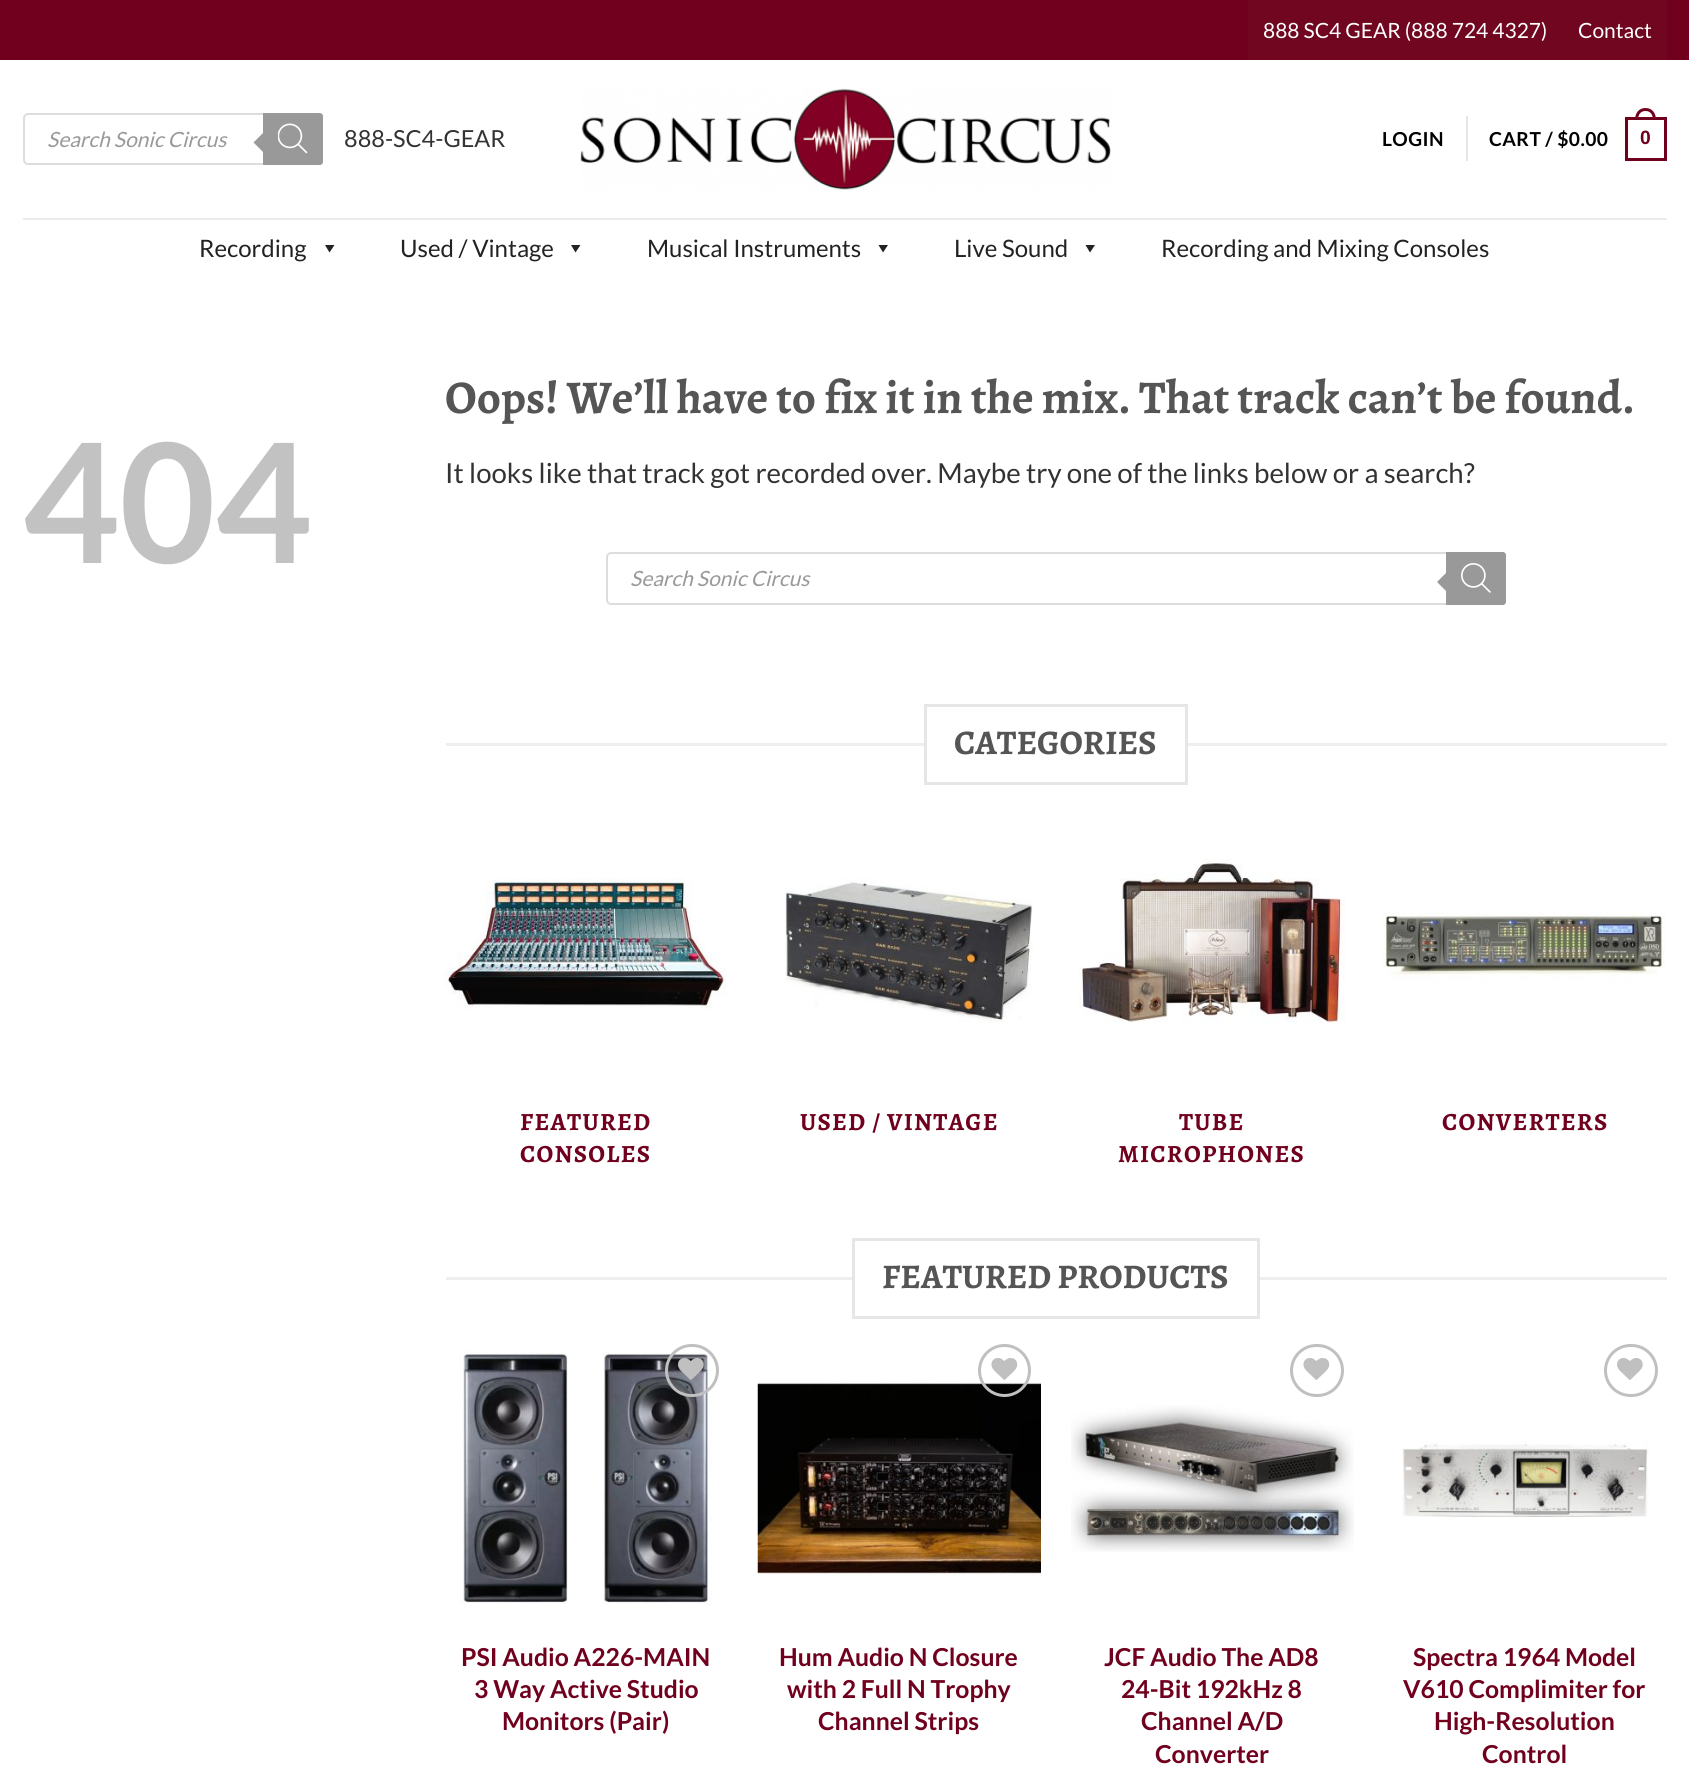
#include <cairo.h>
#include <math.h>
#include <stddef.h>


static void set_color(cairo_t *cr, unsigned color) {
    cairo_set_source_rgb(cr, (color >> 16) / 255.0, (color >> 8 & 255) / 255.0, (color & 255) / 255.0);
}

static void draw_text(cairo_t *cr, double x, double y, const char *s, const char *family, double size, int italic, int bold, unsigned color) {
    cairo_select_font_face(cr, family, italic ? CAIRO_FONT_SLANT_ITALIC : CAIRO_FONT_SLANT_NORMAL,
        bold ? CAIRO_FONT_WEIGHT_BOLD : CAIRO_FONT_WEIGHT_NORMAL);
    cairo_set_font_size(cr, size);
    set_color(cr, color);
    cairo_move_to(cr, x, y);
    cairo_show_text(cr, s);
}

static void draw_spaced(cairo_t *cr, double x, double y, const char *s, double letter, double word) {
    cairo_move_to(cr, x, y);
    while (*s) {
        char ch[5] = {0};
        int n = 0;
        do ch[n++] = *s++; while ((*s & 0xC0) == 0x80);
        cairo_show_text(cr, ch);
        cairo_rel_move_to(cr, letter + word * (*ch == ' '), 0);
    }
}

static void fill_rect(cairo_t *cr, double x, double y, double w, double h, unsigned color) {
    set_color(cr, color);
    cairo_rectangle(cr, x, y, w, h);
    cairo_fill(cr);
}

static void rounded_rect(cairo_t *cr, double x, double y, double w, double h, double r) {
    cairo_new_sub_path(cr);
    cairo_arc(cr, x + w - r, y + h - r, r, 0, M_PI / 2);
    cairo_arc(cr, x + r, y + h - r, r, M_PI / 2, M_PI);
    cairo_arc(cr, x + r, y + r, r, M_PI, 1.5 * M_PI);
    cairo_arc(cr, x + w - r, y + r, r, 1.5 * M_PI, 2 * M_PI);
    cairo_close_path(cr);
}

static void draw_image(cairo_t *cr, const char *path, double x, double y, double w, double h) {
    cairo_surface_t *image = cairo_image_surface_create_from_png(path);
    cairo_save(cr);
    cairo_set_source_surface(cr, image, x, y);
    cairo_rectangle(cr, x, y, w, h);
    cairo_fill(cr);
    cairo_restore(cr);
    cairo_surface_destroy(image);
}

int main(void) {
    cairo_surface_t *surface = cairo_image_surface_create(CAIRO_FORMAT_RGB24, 1689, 1769);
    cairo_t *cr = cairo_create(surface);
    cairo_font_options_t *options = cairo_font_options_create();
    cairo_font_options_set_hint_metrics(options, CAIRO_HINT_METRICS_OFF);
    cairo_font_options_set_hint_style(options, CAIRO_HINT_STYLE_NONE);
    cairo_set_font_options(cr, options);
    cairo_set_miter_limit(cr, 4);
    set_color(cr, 0xFFFFFF);
    cairo_paint(cr);
    fill_rect(cr, 0, 0, 1689, 60, 0x70001D);
    fill_rect(cr, 1248, 0, 419, 60, 0x70061F);
    draw_text(cr, 1263, 38, "888 SC4 GEAR (888 724 4327)", "Lato", 21, 0, 0, 0xFFFFFF);
    draw_text(cr, 1578, 38, "Contact", "Lato", 21, 0, 0, 0xFFFFFF);
    rounded_rect(cr, 24, 114, 298, 50, 4);
    set_color(cr, 0xDDDDDD);
    cairo_stroke(cr);
    draw_text(cr, 47, 147, "Search Sonic Circus", "Lato", 21, 1, 0, 0x999999);
    cairo_new_path(cr);
    cairo_move_to(cr, 263, 113);
    cairo_line_to(cr, 320, 113);
    cairo_curve_to(cr, 321.5, 113, 323, 114.5, 323, 116);
    cairo_line_to(cr, 323, 162);
    cairo_curve_to(cr, 323, 163.5, 321.5, 165, 320, 165);
    cairo_line_to(cr, 263, 165);
    cairo_close_path(cr);
    cairo_fill(cr);
    cairo_new_path(cr);
    cairo_move_to(cr, 265.5, 130.5);
    cairo_line_to(cr, 265.5, 154.5);
    cairo_line_to(cr, 253.5, 142.5);
    cairo_close_path(cr);
    cairo_fill(cr);
    draw_image(cr, "assets/img1.png", 278, 123, 30, 31);
    draw_text(cr, 344, 147, "888-SC4-GEAR", "Lato", 23.5, 0, 0, 0x333333);
    draw_image(cr, "assets/img2.png", 580, 88, 531, 102);
    cairo_select_font_face(cr, "Lato", CAIRO_FONT_SLANT_NORMAL, CAIRO_FONT_WEIGHT_BOLD);
    cairo_set_font_size(cr, 19.25);
    set_color(cr, 0x000000);
    draw_spaced(cr, 1382, 146, "LOGIN", 0.4, 0);
    fill_rect(cr, 1466, 116, 2, 45, 0xE6E6E6);
    set_color(cr, 0x000000);
    draw_spaced(cr, 1489, 146, "CART / $0.00", 0.4, 0);
    cairo_rectangle(cr, 1626.5, 118.5, 39, 41);
    set_color(cr, 0x70001D);
    cairo_set_line_width(cr, 3);
    cairo_stroke(cr);
    cairo_set_fill_rule(cr, CAIRO_FILL_RULE_EVEN_ODD);
    cairo_new_path(cr);
    cairo_move_to(cr, 1645.5, 108);
    cairo_curve_to(cr, 1652.5, 108, 1656, 113.5, 1656, 120);
    cairo_line_to(cr, 1635, 120);
    cairo_curve_to(cr, 1635, 113.5, 1638.5, 108, 1645.5, 108);
    cairo_close_path(cr);
    cairo_move_to(cr, 1645.5, 111);
    cairo_curve_to(cr, 1651, 111, 1653, 115.5, 1653, 120);
    cairo_line_to(cr, 1638, 120);
    cairo_curve_to(cr, 1638, 115.5, 1640, 111, 1645.5, 111);
    cairo_close_path(cr);
    cairo_fill(cr);
    cairo_select_font_face(cr, "Liberation Sans", CAIRO_FONT_SLANT_NORMAL, CAIRO_FONT_WEIGHT_BOLD);
    draw_spaced(cr, 1640, 144, "0", 0.4, 0);
    fill_rect(cr, 23, 218, 1644, 2, 0xEBEBEB);
    draw_text(cr, 199, 257, "Recording", "Lato", 24, 0, 0, 0x222222);
    cairo_set_fill_rule(cr, CAIRO_FILL_RULE_WINDING);
    cairo_new_path(cr);
    cairo_move_to(cr, 334.5, 245);
    cairo_line_to(cr, 329.5, 252.5);
    cairo_line_to(cr, 325, 245);
    cairo_close_path(cr);
    cairo_fill(cr);
    draw_text(cr, 400, 257, "Used / Vintage", "Lato", 24, 0, 0, 0x222222);
    cairo_new_path(cr);
    cairo_move_to(cr, 580.5, 245);
    cairo_line_to(cr, 575.5, 252.5);
    cairo_line_to(cr, 571, 245);
    cairo_close_path(cr);
    cairo_fill(cr);
    draw_text(cr, 647, 257, "Musical Instruments", "Lato", 24, 0, 0, 0x222222);
    cairo_new_path(cr);
    cairo_move_to(cr, 888, 245);
    cairo_line_to(cr, 883, 252.5);
    cairo_line_to(cr, 878.5, 245);
    cairo_close_path(cr);
    cairo_fill(cr);
    draw_text(cr, 954, 257, "Live Sound", "Lato", 24, 0, 0, 0x222222);
    cairo_new_path(cr);
    cairo_move_to(cr, 1095, 245);
    cairo_line_to(cr, 1090, 252.5);
    cairo_line_to(cr, 1085.5, 245);
    cairo_close_path(cr);
    cairo_fill(cr);
    draw_text(cr, 1161, 257, "Recording and Mixing Consoles", "Lato", 24, 0, 0, 0x222222);
    draw_text(cr, 23, 563, "404", "Lato", 166, 0, 1, 0xC2C2C2);
    draw_text(cr, 445, 413, "Oops! We’ll have to fix it in the mix. That track can’t be found.", "Alegreya", 46.9, 0, 1, 0x555555);
    draw_text(cr, 445, 483, "It looks like that track got recorded over. Maybe try one of the links below or a search?", "Lato", 27.6, 0, 0, 0x333333);
    rounded_rect(cr, 607, 553, 898, 51, 4);
    set_color(cr, 0xDDDDDD);
    cairo_set_line_width(cr, 2);
    cairo_stroke(cr);
    draw_text(cr, 630, 586, "Search Sonic Circus", "Lato", 21, 1, 0, 0x999999);
    cairo_new_path(cr);
    cairo_move_to(cr, 1446, 552);
    cairo_line_to(cr, 1503, 552);
    cairo_curve_to(cr, 1504.5, 552, 1506, 553.5, 1506, 555);
    cairo_line_to(cr, 1506, 602);
    cairo_curve_to(cr, 1506, 603.5, 1504.5, 605, 1503, 605);
    cairo_line_to(cr, 1446, 605);
    cairo_close_path(cr);
    cairo_fill(cr);
    cairo_new_path(cr);
    cairo_move_to(cr, 1449, 570);
    cairo_line_to(cr, 1449, 594);
    cairo_line_to(cr, 1437, 582);
    cairo_close_path(cr);
    cairo_fill(cr);
    draw_image(cr, "assets/img3.png", 1461, 563, 30, 30);
    fill_rect(cr, 446, 743, 478, 3, 0xEEEEEE);
    cairo_rectangle(cr, 925.5, 705.5, 261, 78);
    set_color(cr, 0xE6E6E6);
    cairo_set_line_width(cr, 3);
    cairo_stroke(cr);
    draw_text(cr, 954, 754, "CATEGORIES", "Alegreya", 34.5, 0, 1, 0x555555);
    fill_rect(cr, 1188, 743, 479, 3, 0xEEEEEE);
    draw_image(cr, "assets/img4.png", 444, 878, 282, 131);
    cairo_set_font_size(cr, 24.75);
    set_color(cr, 0x70001D);
    draw_spaced(cr, 520, 1130, "FEATURED", 1.25, 0);
    draw_spaced(cr, 520, 1162, "CONSOLES", 1.25, 0);
    draw_image(cr, "assets/img5.png", 785, 878, 248, 145);
    draw_spaced(cr, 800, 1130, "USED / VINTAGE", 1.25, 0);
    draw_image(cr, "assets/img6.png", 1078, 859, 268, 164);
    draw_spaced(cr, 1179, 1130, "TUBE", 1.25, 0);
    draw_spaced(cr, 1118, 1162, "MICROPHONES", 1.25, 0);
    draw_image(cr, "assets/img7.png", 1383, 912, 282, 69);
    draw_spaced(cr, 1442, 1130, "CONVERTERS", 1.25, 0);
    fill_rect(cr, 446, 1277, 406, 3, 0xEEEEEE);
    cairo_rectangle(cr, 853.5, 1239.5, 405, 78);
    set_color(cr, 0xE6E6E6);
    cairo_stroke(cr);
    draw_text(cr, 882, 1288, "FEATURED PRODUCTS", "Alegreya", 34.5, 0, 1, 0x555555);
    fill_rect(cr, 1260, 1277, 407, 3, 0xEEEEEE);
    draw_image(cr, "assets/img9.png", 460, 1350, 252, 255);
    rounded_rect(cr, 666.5, 1345.5, 51, 50, 25);
    set_color(cr, 0xC0C0C0);
    cairo_stroke(cr);
    draw_image(cr, "assets/img8.png", 678, 1358, 26, 22);
    draw_text(cr, 461, 1666, "PSI Audio A226-MAIN", "Lato", 24.75, 0, 1, 0x70001D);
    draw_text(cr, 474, 1698, "3 Way Active Studio", "Lato", 24.75, 0, 1, 0x70001D);
    draw_text(cr, 502, 1730, "Monitors (Pair)", "Lato", 24.75, 0, 1, 0x70001D);
    draw_image(cr, "assets/img11.png", 757, 1382, 284, 194);
    cairo_arc(cr, 1004.5, 1370.5, 25, 0, 2 * M_PI);
    set_color(cr, 0xC0C0C0);
    cairo_stroke(cr);
    draw_image(cr, "assets/img10.png", 991, 1358, 27, 22);
    draw_text(cr, 779, 1666, "Hum Audio N Closure", "Lato", 24.75, 0, 1, 0x70001D);
    draw_text(cr, 787, 1698, "with 2 Full N Trophy", "Lato", 24.75, 0, 1, 0x70001D);
    draw_text(cr, 818, 1730, "Channel Strips", "Lato", 24.75, 0, 1, 0x70001D);
    rounded_rect(cr, 1291.5, 1345.5, 51, 50, 25);
    set_color(cr, 0xC0C0C0);
    cairo_stroke(cr);
    draw_image(cr, "assets/img10.png", 1303, 1358, 27, 22);
    draw_image(cr, "assets/img12.png", 1071, 1405, 283, 147);
    draw_text(cr, 1104, 1666, "JCF Audio The AD8", "Lato", 24.75, 0, 1, 0x70001D);
    draw_text(cr, 1121, 1698, "24-Bit 192kHz 8", "Lato", 24.75, 0, 1, 0x70001D);
    draw_text(cr, 1141, 1730, "Channel A/D", "Lato", 24.75, 0, 1, 0x70001D);
    draw_text(cr, 1155, 1763, "Converter", "Lato", 24.75, 0, 1, 0x70001D);
    rounded_rect(cr, 1605.5, 1345.5, 51, 50, 25);
    set_color(cr, 0xC0C0C0);
    cairo_stroke(cr);
    draw_image(cr, "assets/img13.png", 1617, 1358, 26, 22);
    draw_image(cr, "assets/img14.png", 1402, 1442, 247, 75);
    draw_text(cr, 1413, 1666, "Spectra 1964 Model", "Lato", 24.75, 0, 1, 0x70001D);
    draw_text(cr, 1403, 1698, "V610 Complimiter for", "Lato", 24.75, 0, 1, 0x70001D);
    draw_text(cr, 1434, 1730, "High-Resolution", "Lato", 24.75, 0, 1, 0x70001D);
    draw_text(cr, 1482, 1763, "Control", "Lato", 24.75, 0, 1, 0x70001D);
    cairo_surface_write_to_png(surface, "output.png");
    cairo_font_options_destroy(options);
    cairo_destroy(cr);
    cairo_surface_destroy(surface);
    return 0;
}
